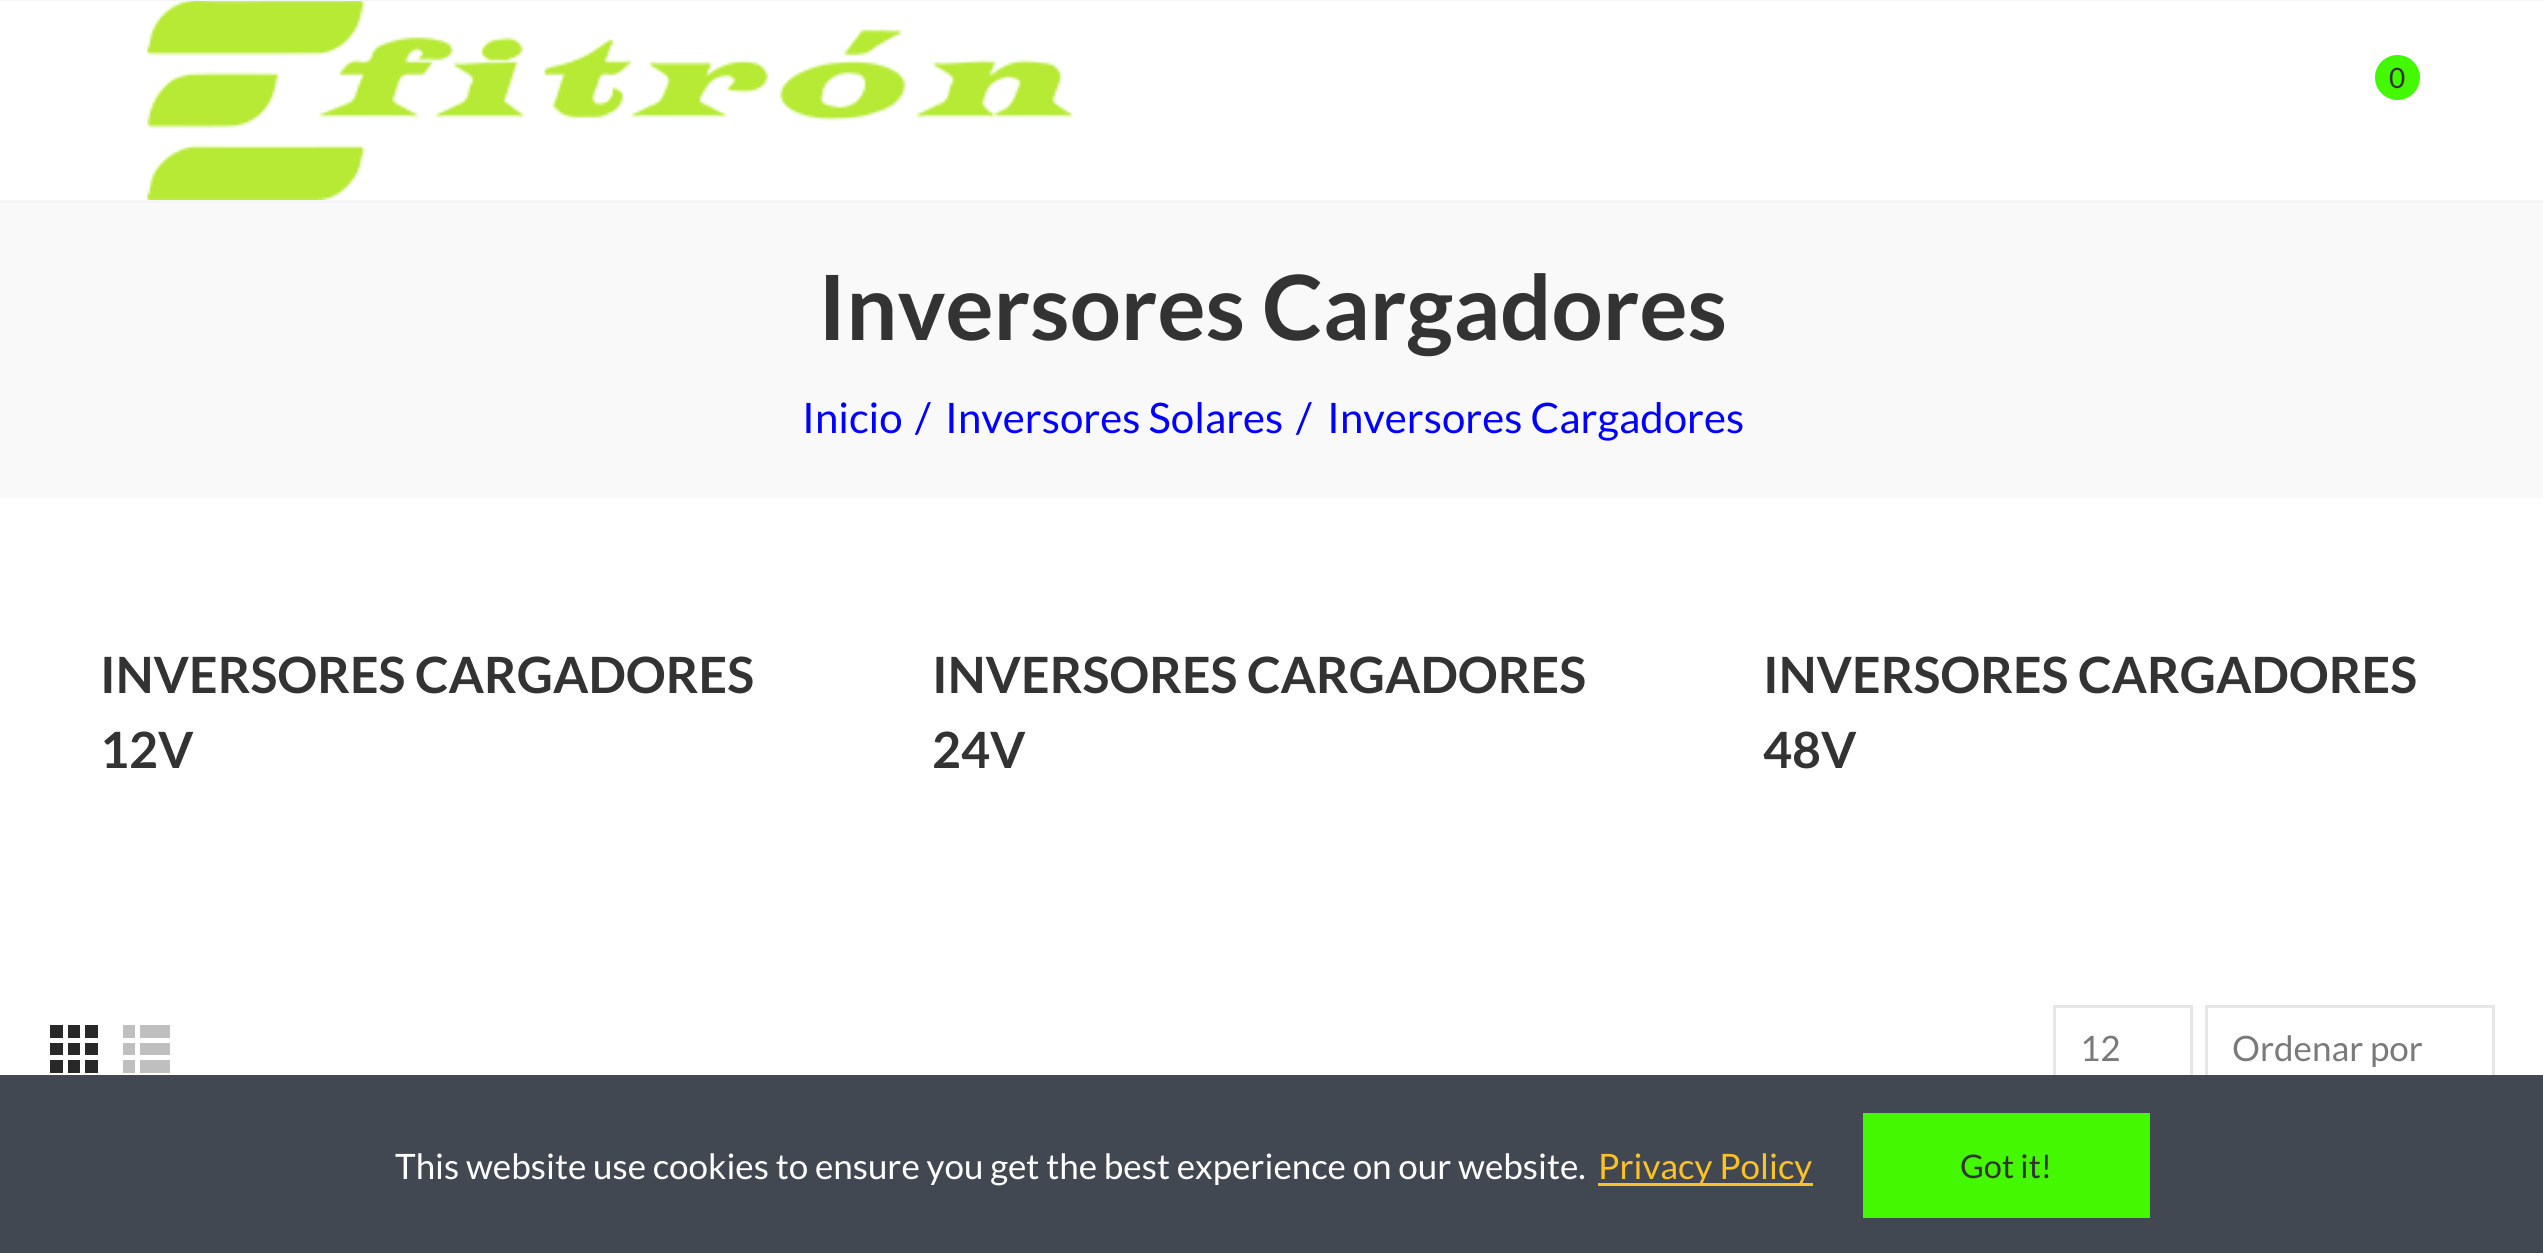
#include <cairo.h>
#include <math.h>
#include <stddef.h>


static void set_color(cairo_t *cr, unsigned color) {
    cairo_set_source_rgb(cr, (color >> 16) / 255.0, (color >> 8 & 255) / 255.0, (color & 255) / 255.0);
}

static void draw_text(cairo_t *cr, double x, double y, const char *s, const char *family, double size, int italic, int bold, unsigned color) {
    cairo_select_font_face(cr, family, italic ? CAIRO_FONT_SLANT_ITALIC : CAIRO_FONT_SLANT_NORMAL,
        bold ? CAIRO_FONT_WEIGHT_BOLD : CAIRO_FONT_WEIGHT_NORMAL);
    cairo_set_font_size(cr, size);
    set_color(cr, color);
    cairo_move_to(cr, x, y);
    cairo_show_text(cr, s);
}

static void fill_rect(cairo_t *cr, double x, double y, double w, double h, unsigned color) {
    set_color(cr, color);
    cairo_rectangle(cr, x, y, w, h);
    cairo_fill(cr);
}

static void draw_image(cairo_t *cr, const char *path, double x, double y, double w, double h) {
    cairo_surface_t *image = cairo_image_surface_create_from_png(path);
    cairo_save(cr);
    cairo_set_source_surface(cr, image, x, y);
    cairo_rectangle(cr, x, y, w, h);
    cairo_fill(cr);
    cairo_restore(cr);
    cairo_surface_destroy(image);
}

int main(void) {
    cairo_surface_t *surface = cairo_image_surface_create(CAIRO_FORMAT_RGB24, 2543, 1253);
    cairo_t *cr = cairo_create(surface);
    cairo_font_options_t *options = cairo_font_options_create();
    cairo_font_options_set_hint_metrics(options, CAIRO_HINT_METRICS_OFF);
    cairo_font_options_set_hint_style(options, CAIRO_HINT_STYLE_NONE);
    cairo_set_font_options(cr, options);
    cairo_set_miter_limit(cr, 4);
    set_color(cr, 0xFFFFFF);
    cairo_paint(cr);
    fill_rect(cr, 0, 0, 2543, 1, 0xF5F5F5);
    fill_rect(cr, 0, 200, 2543, 3, 0xF5F5F5);
    draw_image(cr, "assets/img1.png", 147, 1, 926, 199);
    set_color(cr, 0x43F800);
    cairo_arc(cr, 2397.5, 77.5, 22.5, 0, 2 * M_PI);
    cairo_fill(cr);
    draw_text(cr, 2389, 88, "0", "Lato", 28, 0, 0, 0x333333);
    fill_rect(cr, 0, 203, 2543, 295, 0xF9F9F9);
    draw_text(cr, 818, 340, "Inversores Cargadores", "Lato", 90, 0, 1, 0x333333);
    draw_text(cr, 802, 433, "Inicio", "Lato", 42, 0, 0, 0x0000FF);
    draw_text(cr, 915, 433, "/", "Lato", 42, 0, 0, 0x0000FF);
    draw_text(cr, 945, 433, "Inversores Solares", "Lato", 42, 0, 0, 0x0000FF);
    draw_text(cr, 1296, 433, "/", "Lato", 42, 0, 0, 0x0000FF);
    draw_text(cr, 1327, 433, "Inversores Cargadores", "Lato", 42, 0, 0, 0x0000FF);
    draw_text(cr, 100, 693, "INVERSORES CARGADORES", "Lato", 50, 0, 1, 0x333333);
    draw_text(cr, 100, 768, "12V", "Lato", 50, 0, 1, 0x333333);
    draw_text(cr, 932, 693, "INVERSORES CARGADORES", "Lato", 50, 0, 1, 0x333333);
    draw_text(cr, 932, 768, "24V", "Lato", 50, 0, 1, 0x333333);
    draw_text(cr, 1763, 693, "INVERSORES CARGADORES", "Lato", 50, 0, 1, 0x333333);
    draw_text(cr, 1763, 768, "48V", "Lato", 50, 0, 1, 0x333333);
    fill_rect(cr, 50, 1025, 13, 13, 0x282828);
    fill_rect(cr, 68, 1025, 12, 13, 0x282828);
    fill_rect(cr, 85, 1025, 13, 13, 0x282828);
    fill_rect(cr, 50, 1043, 13, 12, 0x282828);
    fill_rect(cr, 68, 1043, 12, 12, 0x282828);
    fill_rect(cr, 85, 1043, 13, 12, 0x282828);
    fill_rect(cr, 50, 1060, 13, 13, 0x282828);
    fill_rect(cr, 68, 1060, 12, 13, 0x282828);
    fill_rect(cr, 85, 1060, 13, 13, 0x282828);
    fill_rect(cr, 123, 1025, 12, 13, 0xBFBFBF);
    fill_rect(cr, 140, 1025, 30, 13, 0xBFBFBF);
    fill_rect(cr, 123, 1043, 12, 12, 0xBFBFBF);
    fill_rect(cr, 140, 1043, 30, 12, 0xBFBFBF);
    fill_rect(cr, 123, 1060, 12, 13, 0xBFBFBF);
    fill_rect(cr, 140, 1060, 30, 13, 0xBFBFBF);
    cairo_rectangle(cr, 2054.5, 1006.5, 137, 82);
    set_color(cr, 0xE6E6E6);
    cairo_set_line_width(cr, 3);
    cairo_stroke(cr);
    draw_text(cr, 2080, 1061, "12", "Lato", 35, 0, 0, 0x7A7A7A);
    cairo_rectangle(cr, 2206.5, 1006.5, 287, 82);
    set_color(cr, 0xE6E6E6);
    cairo_stroke(cr);
    draw_text(cr, 2232, 1061, "Ordenar por", "Lato", 35, 0, 0, 0x7A7A7A);
    fill_rect(cr, 0, 1075, 2543, 178, 0x424851);
    draw_text(cr, 395, 1179, "This website use cookies to ensure you get the best experience on our website.", "Lato", 35, 0, 0, 0xFFFFFF);
    fill_rect(cr, 1598, 1183, 215, 3, 0xFBC227);
    draw_text(cr, 1598, 1179, "Privacy Policy", "Lato", 35, 0, 0, 0xFBC227);
    fill_rect(cr, 1863, 1113, 287, 105, 0x43F800);
    draw_text(cr, 1960, 1178, "Got it!", "Lato", 32.5, 0, 0, 0x333333);
    cairo_surface_write_to_png(surface, "output.png");
    cairo_font_options_destroy(options);
    cairo_destroy(cr);
    cairo_surface_destroy(surface);
    return 0;
}
